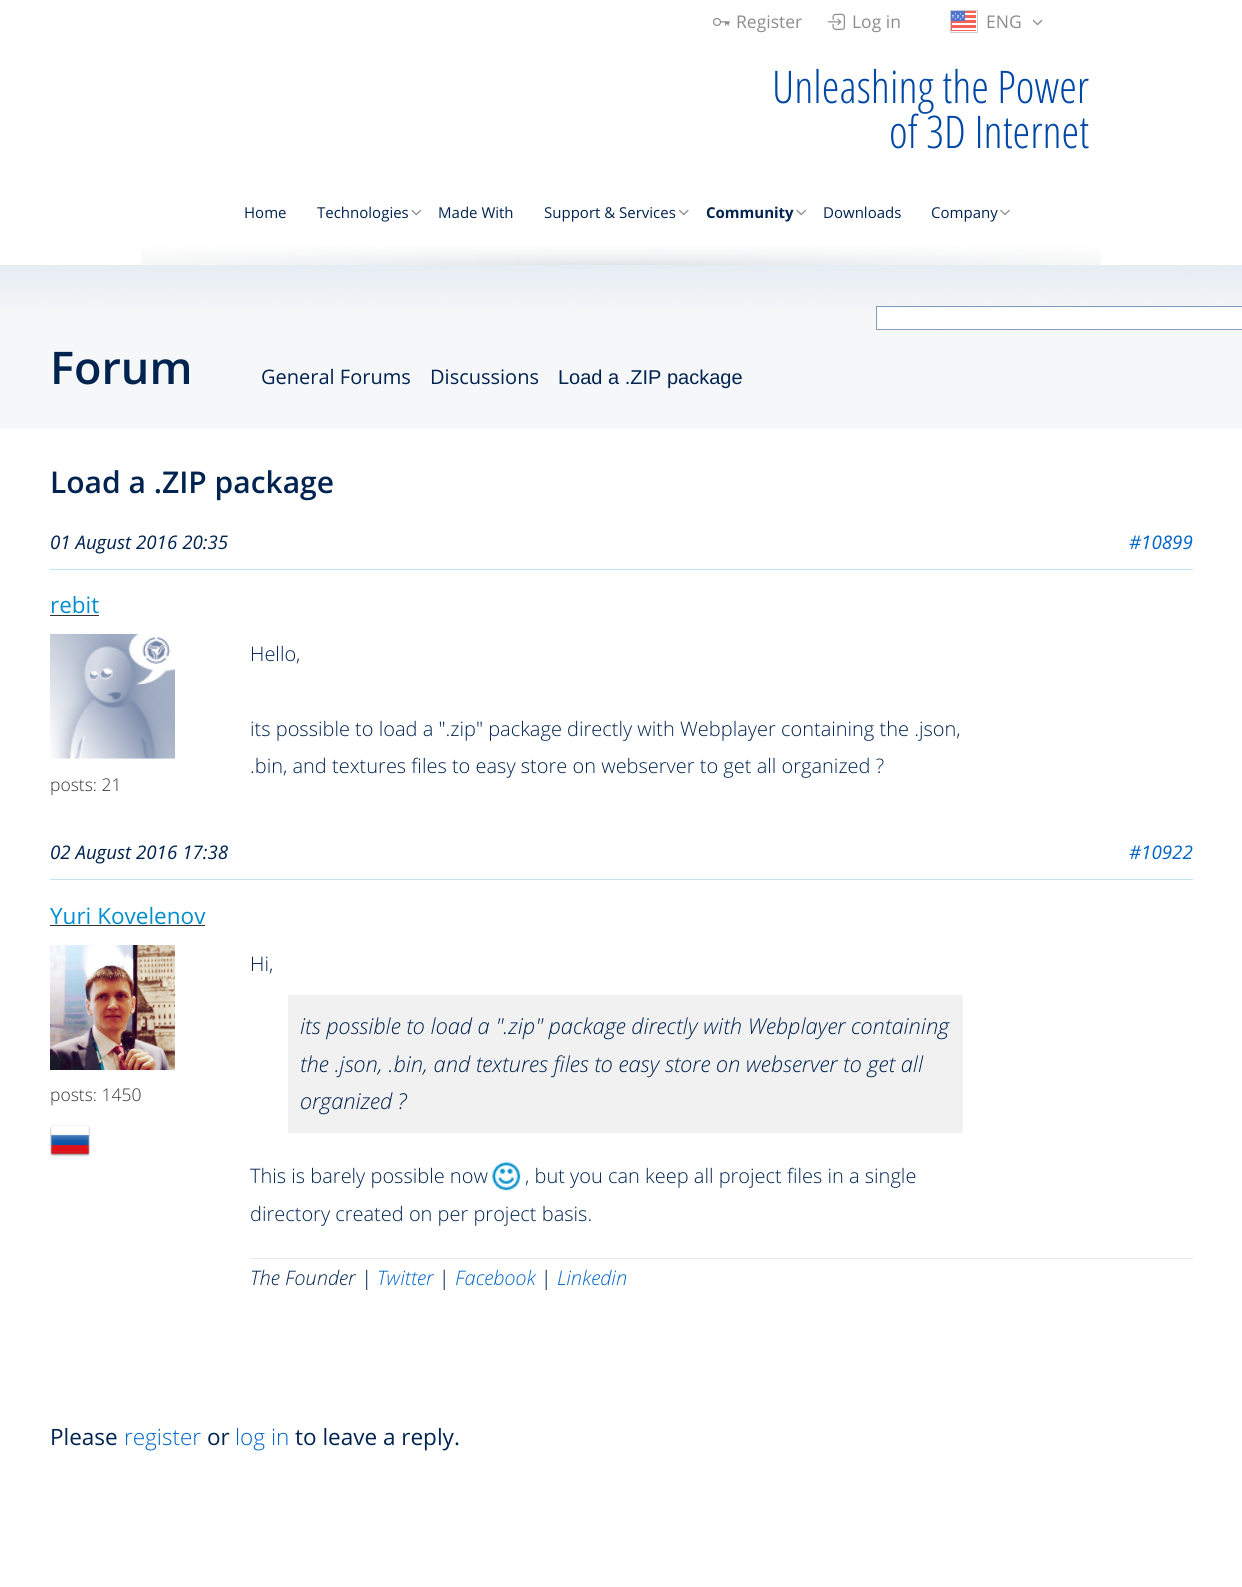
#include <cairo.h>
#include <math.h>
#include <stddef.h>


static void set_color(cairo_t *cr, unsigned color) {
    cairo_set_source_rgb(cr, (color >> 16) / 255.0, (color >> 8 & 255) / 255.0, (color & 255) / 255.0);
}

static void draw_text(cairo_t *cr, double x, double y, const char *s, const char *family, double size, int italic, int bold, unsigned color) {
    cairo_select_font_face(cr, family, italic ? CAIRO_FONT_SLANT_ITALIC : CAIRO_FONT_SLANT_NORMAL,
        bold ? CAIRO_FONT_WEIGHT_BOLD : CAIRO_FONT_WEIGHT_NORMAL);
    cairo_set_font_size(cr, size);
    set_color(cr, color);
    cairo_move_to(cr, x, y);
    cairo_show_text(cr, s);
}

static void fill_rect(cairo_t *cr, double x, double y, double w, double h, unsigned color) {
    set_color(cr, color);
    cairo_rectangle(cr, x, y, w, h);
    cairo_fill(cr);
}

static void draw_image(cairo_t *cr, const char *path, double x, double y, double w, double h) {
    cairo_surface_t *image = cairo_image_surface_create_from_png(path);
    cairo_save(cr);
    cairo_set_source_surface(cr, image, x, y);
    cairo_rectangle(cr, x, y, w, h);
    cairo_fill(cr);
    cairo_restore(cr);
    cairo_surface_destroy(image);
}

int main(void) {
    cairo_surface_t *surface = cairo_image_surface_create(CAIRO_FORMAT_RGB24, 1242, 1587);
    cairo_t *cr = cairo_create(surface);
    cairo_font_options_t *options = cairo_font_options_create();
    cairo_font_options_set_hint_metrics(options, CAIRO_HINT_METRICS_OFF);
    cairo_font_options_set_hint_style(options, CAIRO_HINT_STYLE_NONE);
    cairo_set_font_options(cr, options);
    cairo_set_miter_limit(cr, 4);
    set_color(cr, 0xFFFFFF);
    cairo_paint(cr);
    draw_image(cr, "assets/img1.png", 713, 18, 17, 8);
    draw_text(cr, 736, 28, "Register", "Open Sans", 17.5, 0, 0, 0x8C8C8C);
    draw_image(cr, "assets/img2.png", 828, 13, 17, 17);
    draw_text(cr, 852, 28, "Log in", "Open Sans", 17.5, 0, 0, 0x8C8C8C);
    draw_image(cr, "assets/img3.png", 951, 11, 25, 20);
    cairo_rectangle(cr, 950.5, 10.5, 27, 22);
    set_color(cr, 0xCCCCCC);
    cairo_set_line_width(cr, 1);
    cairo_stroke(cr);
    draw_text(cr, 986, 28, "ENG", "Open Sans", 17.5, 0, 0, 0x8C8C8C);
    draw_image(cr, "assets/img4.png", 1033, 19, 10, 7);
    draw_text(cr, 772, 103, "Unleashing the Power", "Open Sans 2 Light", 45, 0, 0, 0x0048A5);
    draw_text(cr, 889, 148, "of 3D Internet", "Open Sans 2 Light", 45, 0, 0, 0x0048A5);
    draw_image(cr, "assets/img5.png", 141, 246, 960, 19);
    draw_text(cr, 244, 218, "Home", "Open Sans", 15, 0, 0, 0x002350);
    draw_text(cr, 317, 218, "Technologies", "Open Sans", 15, 0, 0, 0x002350);
    draw_image(cr, "assets/img6.png", 411, 209, 10, 7);
    draw_text(cr, 438, 218, "Made With", "Open Sans", 15, 0, 0, 0x002350);
    draw_text(cr, 544, 218, "Support & Services", "Open Sans", 15, 0, 0, 0x002350);
    draw_image(cr, "assets/img7.png", 679, 209, 10, 7);
    draw_text(cr, 706, 218, "Community", "Open Sans", 15, 0, 1, 0x002350);
    draw_image(cr, "assets/img6.png", 796, 209, 10, 7);
    draw_text(cr, 823, 218, "Downloads", "Open Sans", 15, 0, 0, 0x002350);
    draw_text(cr, 931, 218, "Company", "Open Sans", 15, 0, 0, 0x002350);
    draw_image(cr, "assets/img8.png", 1000, 209, 10, 7);
    draw_image(cr, "assets/img9.png", 0, 265, 1242, 164);
    set_color(cr, 0xFFFFFF);
    cairo_rectangle(cr, 876.5, 306.5, 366, 23);
    cairo_fill_preserve(cr);
    set_color(cr, 0x7F9DB9);
    cairo_stroke(cr);
    draw_text(cr, 50, 384, "Forum", "Open Sans SemiBold", 45, 0, 0, 0x002350);
    draw_text(cr, 261, 384, "General Forums", "Open Sans", 20, 0, 0, 0x002350);
    draw_text(cr, 430, 384, "Discussions", "Open Sans", 20, 0, 0, 0x002350);
    draw_text(cr, 558, 384, "Load a .ZIP package", "Arimo", 20, 0, 0, 0x002350);
    draw_text(cr, 50, 493, "Load a .ZIP package", "Open Sans SemiBold", 30, 0, 0, 0x002350);
    fill_rect(cr, 50, 569, 1143, 1, 0xC4E7F5);
    draw_text(cr, 50, 549, "01 August 2016 20:35", "Open Sans", 18.75, 1, 0, 0x002350);
    draw_text(cr, 1129, 549, "#10899", "Open Sans", 18.75, 1, 0, 0x0064C8);
    draw_text(cr, 50, 613, "rebit", "Open Sans", 22.5, 0, 0, 0x008ECC);
    fill_rect(cr, 50, 615, 49, 1, 0x333333);
    draw_text(cr, 250, 661, "Hello,", "Open Sans Light", 20, 0, 0, 0x002350);
    draw_text(cr, 250, 736, "its possible to load a \".zip\" package directly with Webplayer containing the .json,", "Open Sans Light", 20, 0, 0, 0x002350);
    draw_text(cr, 250, 773, ".bin, and textures files to easy store on webserver to get all organized ?", "Open Sans Light", 20, 0, 0, 0x002350);
    draw_image(cr, "assets/img10.png", 50, 633, 125, 126);
    draw_text(cr, 50, 791, "posts: 21", "Open Sans Light", 17.5, 0, 0, 0x333333);
    fill_rect(cr, 50, 879, 1143, 1, 0xC4E7F5);
    draw_text(cr, 50, 859, "02 August 2016 17:38", "Open Sans", 18.75, 1, 0, 0x002350);
    draw_text(cr, 1129, 859, "#10922", "Open Sans", 18.75, 1, 0, 0x0064C8);
    draw_text(cr, 50, 924, "Yuri Kovelenov", "Open Sans", 22.5, 0, 0, 0x008ECC);
    fill_rect(cr, 50, 925, 155, 1, 0x333333);
    draw_image(cr, "assets/img11.png", 50, 945, 125, 125);
    draw_text(cr, 50, 1101, "posts: 1450", "Open Sans Light", 17.5, 0, 0, 0x333333);
    draw_image(cr, "assets/img12.png", 50, 1125, 40, 32);
    draw_text(cr, 250, 971, "Hi,", "Open Sans Light", 20, 0, 0, 0x002350);
    fill_rect(cr, 288, 995, 675, 138, 0xF1F1F1);
    draw_text(cr, 300, 1034, "its possible to load a \".zip\" package directly with Webplayer containing", "Open Sans Light", 21.9, 1, 0, 0x002350);
    draw_text(cr, 300, 1072, "the .json, .bin, and textures files to easy store on webserver to get all", "Open Sans Light", 21.9, 1, 0, 0x002350);
    draw_text(cr, 300, 1109, "organized ?", "Open Sans Light", 21.9, 1, 0, 0x002350);
    draw_text(cr, 250, 1183, "This is barely possible now", "Open Sans Light", 20, 0, 0, 0x002350);
    draw_image(cr, "assets/img13.png", 492, 1162, 29, 29);
    draw_text(cr, 525, 1183, ", but you can keep all project files in a single", "Open Sans Light", 20, 0, 0, 0x002350);
    draw_text(cr, 250, 1221, "directory created on per project basis.", "Open Sans Light", 20, 0, 0, 0x002350);
    fill_rect(cr, 250, 1258, 943, 1, 0xE6E9EE);
    draw_text(cr, 250, 1285, "The Founder |", "Open Sans Light", 20, 1, 0, 0x002350);
    draw_text(cr, 377, 1285, "Twitter", "Open Sans Light", 20, 1, 0, 0x0064C8);
    draw_text(cr, 438, 1285, "|", "Open Sans Light", 20, 1, 0, 0x002350);
    draw_text(cr, 455, 1285, "Facebook", "Open Sans Light", 20, 1, 0, 0x0064C8);
    draw_text(cr, 540, 1285, "|", "Open Sans Light", 20, 1, 0, 0x002350);
    draw_text(cr, 557, 1285, "Linkedin", "Open Sans Light", 20, 1, 0, 0x0064C8);
    draw_text(cr, 50, 1445, "Please", "Open Sans", 22.5, 0, 0, 0x002350);
    draw_text(cr, 124, 1445, "register", "Open Sans Light", 22.5, 0, 0, 0x0064C8);
    draw_text(cr, 207, 1445, "or", "Open Sans", 22.5, 0, 0, 0x002350);
    draw_text(cr, 235, 1445, "log in", "Open Sans Light", 22.5, 0, 0, 0x0064C8);
    draw_text(cr, 295, 1445, "to leave a reply.", "Open Sans", 22.5, 0, 0, 0x002350);
    cairo_surface_write_to_png(surface, "output.png");
    cairo_font_options_destroy(options);
    cairo_destroy(cr);
    cairo_surface_destroy(surface);
    return 0;
}
